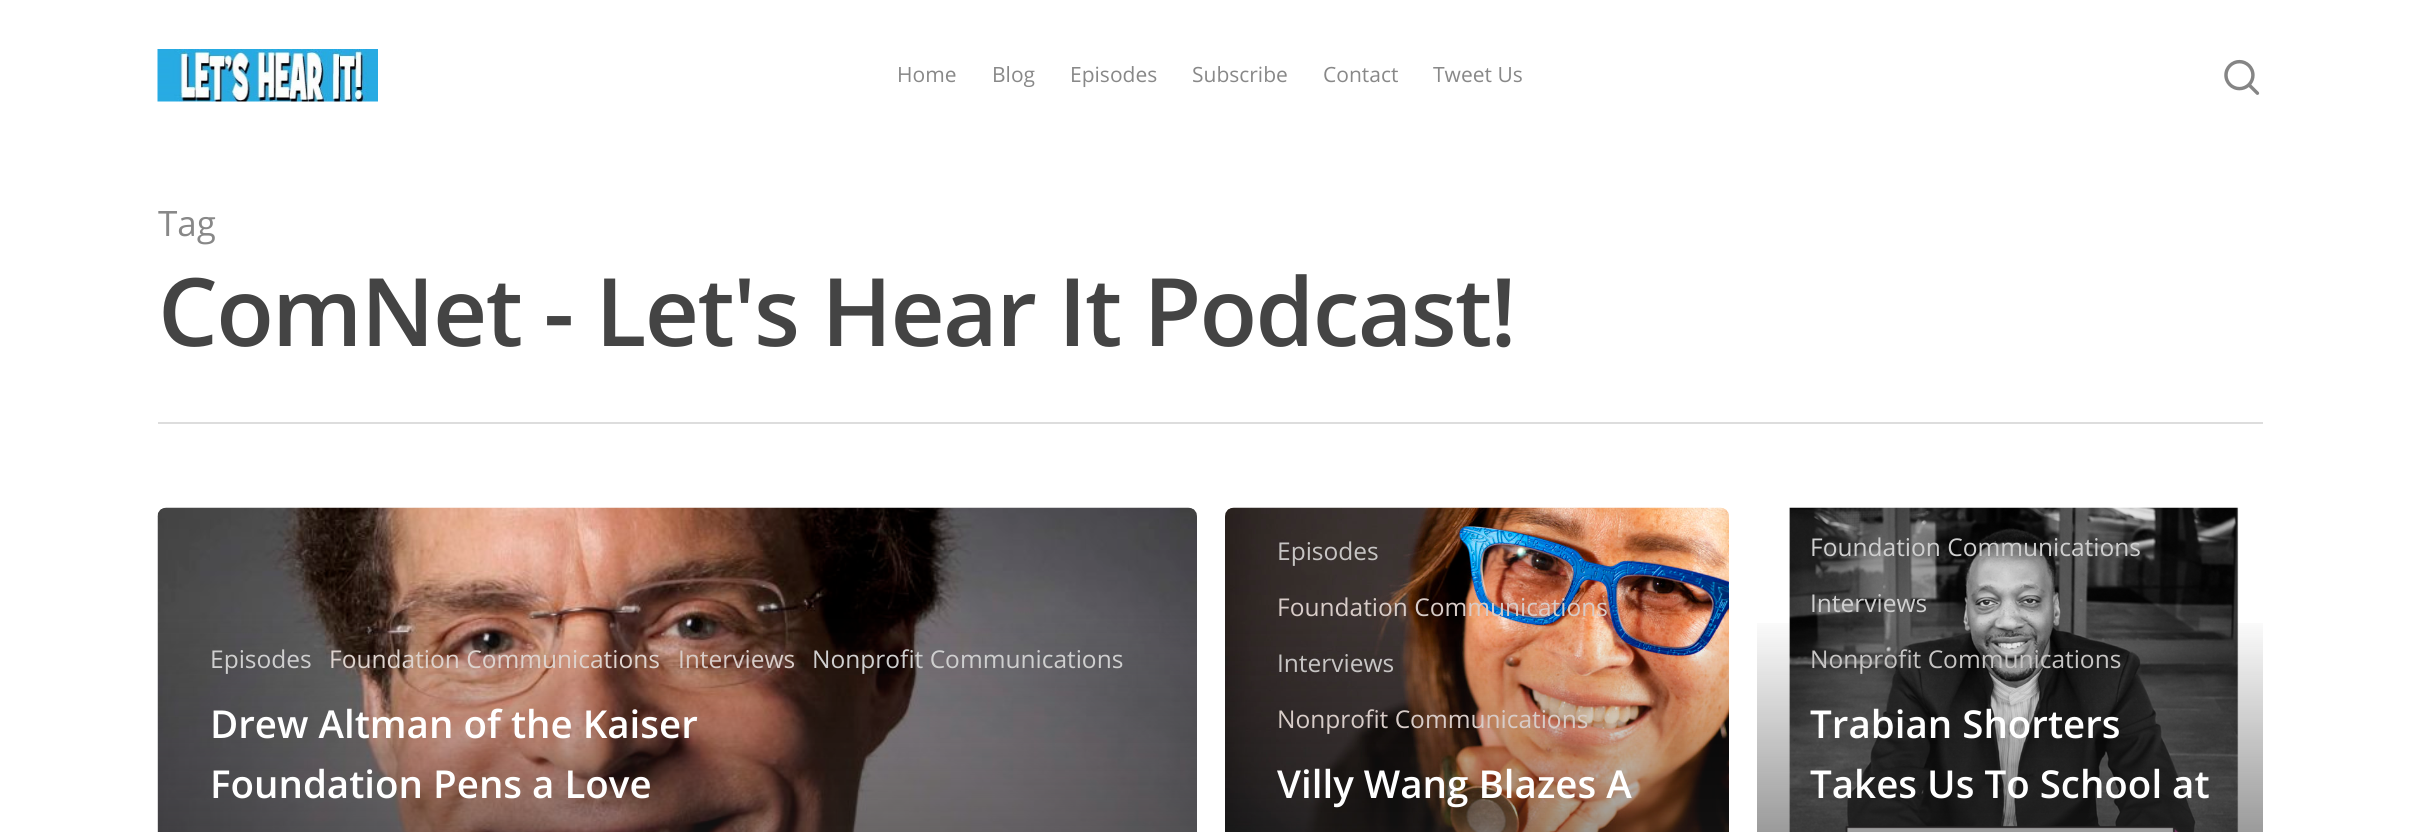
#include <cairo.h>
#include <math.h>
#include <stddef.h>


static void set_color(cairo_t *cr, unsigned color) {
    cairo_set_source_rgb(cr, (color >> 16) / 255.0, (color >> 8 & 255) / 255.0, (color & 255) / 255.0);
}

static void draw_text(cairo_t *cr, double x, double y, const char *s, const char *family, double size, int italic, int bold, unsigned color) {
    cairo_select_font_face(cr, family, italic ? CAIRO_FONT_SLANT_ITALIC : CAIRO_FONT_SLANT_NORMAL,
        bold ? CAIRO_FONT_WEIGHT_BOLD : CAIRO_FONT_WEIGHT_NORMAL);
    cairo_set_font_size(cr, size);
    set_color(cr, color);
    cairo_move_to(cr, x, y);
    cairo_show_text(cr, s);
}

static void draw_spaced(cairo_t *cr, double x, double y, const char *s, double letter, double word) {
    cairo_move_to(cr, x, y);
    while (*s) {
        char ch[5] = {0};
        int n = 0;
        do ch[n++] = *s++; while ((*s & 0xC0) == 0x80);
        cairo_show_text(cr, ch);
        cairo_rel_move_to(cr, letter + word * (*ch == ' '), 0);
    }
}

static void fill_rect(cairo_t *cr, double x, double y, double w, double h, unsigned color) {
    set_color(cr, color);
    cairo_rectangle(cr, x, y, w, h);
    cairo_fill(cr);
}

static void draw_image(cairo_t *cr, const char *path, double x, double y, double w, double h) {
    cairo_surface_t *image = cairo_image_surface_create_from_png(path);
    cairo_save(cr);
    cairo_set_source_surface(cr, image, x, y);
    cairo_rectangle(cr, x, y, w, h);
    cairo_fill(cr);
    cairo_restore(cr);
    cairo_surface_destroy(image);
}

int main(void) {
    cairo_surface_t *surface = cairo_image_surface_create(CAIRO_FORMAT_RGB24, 2420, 832);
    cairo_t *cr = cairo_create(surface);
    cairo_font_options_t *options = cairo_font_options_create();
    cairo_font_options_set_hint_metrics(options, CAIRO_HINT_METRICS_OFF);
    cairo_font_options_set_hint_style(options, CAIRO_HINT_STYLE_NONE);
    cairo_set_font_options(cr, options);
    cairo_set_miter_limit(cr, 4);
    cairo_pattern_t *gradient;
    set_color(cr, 0xFFFFFF);
    cairo_paint(cr);
    draw_image(cr, "assets/img1.png", 157, 49, 221, 53);
    draw_text(cr, 897, 82, "Home", "Open Sans", 21, 0, 0, 0x888888);
    draw_text(cr, 992, 82, "Blog", "Open Sans", 21, 0, 0, 0x888888);
    draw_text(cr, 1070, 82, "Episodes", "Open Sans", 21, 0, 0, 0x888888);
    draw_text(cr, 1192, 82, "Subscribe", "Open Sans", 21, 0, 0, 0x888888);
    draw_text(cr, 1323, 82, "Contact", "Open Sans", 21, 0, 0, 0x888888);
    draw_text(cr, 1433, 82, "Tweet Us", "Open Sans", 21, 0, 0, 0x888888);
    draw_image(cr, "assets/img2.png", 2224, 59, 36, 36);
    fill_rect(cr, 158, 422, 2105, 2, 0xDDDDDD);
    draw_text(cr, 158, 236, "Tag", "Open Sans", 35, 0, 0, 0x888888);
    cairo_select_font_face(cr, "Open Sans SemiBold", CAIRO_FONT_SLANT_NORMAL, CAIRO_FONT_WEIGHT_NORMAL);
    cairo_set_font_size(cr, 94.5);
    set_color(cr, 0x444444);
    draw_spaced(cr, 158, 346, "ComNet - Let's Hear It Podcast!", -1.75, 0);
    draw_image(cr, "assets/img3.png", 157, 507, 1040, 325);
    draw_text(cr, 210, 668, "Episodes", "Open Sans", 24.5, 0, 0, 0xCFCFCF);
    draw_text(cr, 329, 668, "Foundation Communications", "Open Sans", 24.5, 0, 0, 0xDED3CE);
    draw_text(cr, 678, 668, "Interviews", "Open Sans", 24.5, 0, 0, 0xD8CCC8);
    draw_text(cr, 812, 668, "Nonprofit Communications", "Open Sans", 24.5, 0, 0, 0xCFCFCF);
    draw_text(cr, 210, 738, "Drew Altman of the Kaiser", "Open Sans SemiBold", 38.5, 0, 0, 0xFFFFFF);
    draw_text(cr, 210, 798, "Foundation Pens a Love", "Open Sans SemiBold", 38.5, 0, 0, 0xFFFFFF);
    draw_image(cr, "assets/img4.png", 1225, 507, 504, 325);
    draw_text(cr, 1277, 560, "Episodes", "Open Sans", 24.5, 0, 0, 0xC7C5C4);
    draw_text(cr, 1277, 616, "Foundation Communications", "Open Sans", 24.5, 0, 0, 0xD8CCC8);
    draw_text(cr, 1277, 672, "Interviews", "Open Sans", 24.5, 0, 0, 0xC7C5C4);
    draw_text(cr, 1277, 728, "Nonprofit Communications", "Open Sans", 24.5, 0, 0, 0xD8CCC8);
    draw_text(cr, 1277, 798, "Villy Wang Blazes A", "Open Sans SemiBold", 38.5, 0, 0, 0xFFFFFF);
    draw_image(cr, "assets/img5.png", 1789, 507, 450, 325);
    gradient = cairo_pattern_create_linear(2011, 613, 2011, 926);
    cairo_pattern_add_color_stop_rgba(gradient, 0, 0.137, 0.137, 0.137, 0);
    cairo_pattern_add_color_stop_rgba(gradient, 1, 0.137, 0.137, 0.137, 0.65);
    cairo_set_source(cr, gradient);
    cairo_pattern_destroy(gradient);
    cairo_rectangle(cr, 1757, 623, 506, 209);
    cairo_fill(cr);
    draw_text(cr, 1810, 556, "Foundation Communications", "Open Sans", 24.5, 0, 0, 0xCFCFCF);
    draw_text(cr, 1810, 612, "Interviews", "Open Sans", 24.5, 0, 0, 0xCFCFCF);
    draw_text(cr, 1810, 668, "Nonprofit Communications", "Open Sans", 24.5, 0, 0, 0xC7C5C4);
    draw_text(cr, 1810, 738, "Trabian Shorters", "Open Sans SemiBold", 38.5, 0, 0, 0xFFFFFF);
    draw_text(cr, 1810, 798, "Takes Us To School at", "Open Sans SemiBold", 38.5, 0, 0, 0xFFFFFF);
    cairo_surface_write_to_png(surface, "output.png");
    cairo_font_options_destroy(options);
    cairo_destroy(cr);
    cairo_surface_destroy(surface);
    return 0;
}
